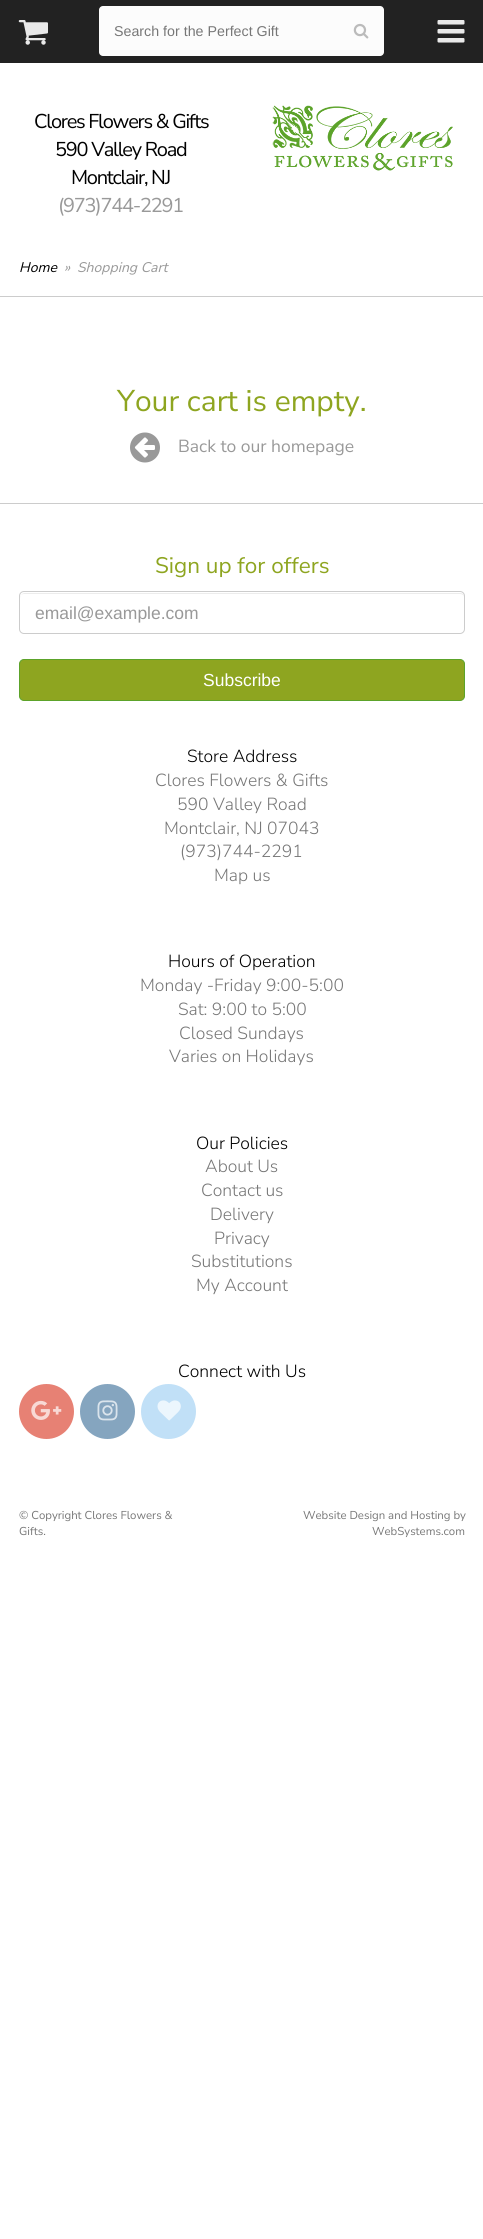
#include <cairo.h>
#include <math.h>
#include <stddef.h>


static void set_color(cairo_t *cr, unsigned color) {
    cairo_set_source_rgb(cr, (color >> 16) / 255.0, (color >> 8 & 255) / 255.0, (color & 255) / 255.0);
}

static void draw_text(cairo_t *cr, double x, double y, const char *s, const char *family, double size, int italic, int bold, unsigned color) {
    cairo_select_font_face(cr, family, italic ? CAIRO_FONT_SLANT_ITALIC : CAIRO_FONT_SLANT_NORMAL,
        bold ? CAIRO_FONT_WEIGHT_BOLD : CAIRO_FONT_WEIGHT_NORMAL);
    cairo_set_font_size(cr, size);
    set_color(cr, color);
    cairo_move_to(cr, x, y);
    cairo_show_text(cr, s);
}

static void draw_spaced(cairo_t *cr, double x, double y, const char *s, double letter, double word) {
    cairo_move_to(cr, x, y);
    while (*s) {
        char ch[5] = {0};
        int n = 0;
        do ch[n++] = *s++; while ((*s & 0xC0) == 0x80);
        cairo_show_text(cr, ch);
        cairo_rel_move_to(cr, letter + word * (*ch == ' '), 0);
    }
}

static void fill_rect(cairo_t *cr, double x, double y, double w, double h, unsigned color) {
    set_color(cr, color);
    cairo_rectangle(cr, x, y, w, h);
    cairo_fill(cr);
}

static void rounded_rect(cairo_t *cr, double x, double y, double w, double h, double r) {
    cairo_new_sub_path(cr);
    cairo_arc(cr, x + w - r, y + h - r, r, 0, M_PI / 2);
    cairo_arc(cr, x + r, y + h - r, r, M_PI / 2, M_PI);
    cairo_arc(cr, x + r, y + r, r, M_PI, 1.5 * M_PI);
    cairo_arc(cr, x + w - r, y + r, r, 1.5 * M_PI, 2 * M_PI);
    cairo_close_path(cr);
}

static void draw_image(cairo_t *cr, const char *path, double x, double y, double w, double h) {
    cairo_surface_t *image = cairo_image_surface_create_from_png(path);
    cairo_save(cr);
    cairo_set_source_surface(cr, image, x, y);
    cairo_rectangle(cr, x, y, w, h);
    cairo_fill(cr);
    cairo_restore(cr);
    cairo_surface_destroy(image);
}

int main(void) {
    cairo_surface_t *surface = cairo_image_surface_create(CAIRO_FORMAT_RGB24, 483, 2239);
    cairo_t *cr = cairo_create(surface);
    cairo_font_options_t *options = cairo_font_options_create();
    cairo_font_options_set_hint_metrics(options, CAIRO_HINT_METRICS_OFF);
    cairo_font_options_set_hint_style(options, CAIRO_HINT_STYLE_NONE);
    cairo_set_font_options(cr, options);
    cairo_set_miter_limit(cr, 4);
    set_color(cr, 0xFFFFFF);
    cairo_paint(cr);
    fill_rect(cr, 0, 0, 483, 63, 0x222222);
    draw_image(cr, "assets/img1.png", 18, 20, 30, 25);
    set_color(cr, 0xFCFCFC);
    rounded_rect(cr, 99, 6, 285, 50, 4);
    cairo_fill(cr);
    draw_text(cr, 114, 36, "Search for the Perfect Gift", "Liberation Sans", 14.25, 0, 0, 0x777777);
    draw_image(cr, "assets/img2.png", 353, 23, 16, 16);
    draw_image(cr, "assets/img3.png", 437, 20, 28, 23);
    cairo_select_font_face(cr, "Nunito Sans", CAIRO_FONT_SLANT_NORMAL, CAIRO_FONT_WEIGHT_NORMAL);
    cairo_set_font_size(cr, 20);
    set_color(cr, 0x000000);
    draw_spaced(cr, 34, 128, "Clores Flowers & Gifts", -1.25, 0);
    draw_spaced(cr, 55, 156, "590 Valley Road", -1.25, 0);
    draw_spaced(cr, 71, 184, "Montclair, NJ", -1.25, 0);
    set_color(cr, 0x999999);
    draw_spaced(cr, 58, 212, "(973)744-2291", -1.25, 0);
    draw_image(cr, "assets/img4.png", 272, 105, 181, 66);
    fill_rect(cr, 0, 296, 483, 1, 0xCCCCCC);
    draw_text(cr, 19, 272, "Home", "Nunito Sans", 14, 1, 0, 0x000000);
    draw_text(cr, 64, 272, "»", "Nunito Sans", 14, 1, 0, 0x999999);
    draw_text(cr, 77, 272, "Shopping Cart", "Nunito Sans", 14, 1, 0, 0x999999);
    draw_text(cr, 117, 411, "Your cart is empty.", "Nunito Sans", 30, 0, 0, 0x8EA520);
    draw_image(cr, "assets/img5.png", 130, 432, 30, 31);
    draw_text(cr, 178, 452, "Back to our homepage", "Nunito Sans", 17.5, 0, 0, 0x999999);
    fill_rect(cr, 0, 503, 483, 1, 0xCCCCCC);
    draw_text(cr, 155, 573, "Sign up for offers", "Nunito Sans", 22.5, 0, 0, 0x8EA520);
    set_color(cr, 0xECECEC);
    cairo_new_path(cr);
    cairo_move_to(cr, 24, 594);
    cairo_line_to(cr, 460, 594);
    cairo_curve_to(cr, 462, 594, 464, 595, 464, 598);
    cairo_curve_to(cr, 464, 595, 463, 593, 460, 593);
    cairo_line_to(cr, 24, 593);
    cairo_line_to(cr, 22, 594);
    cairo_line_to(cr, 21, 595);
    cairo_line_to(cr, 20, 598);
    cairo_curve_to(cr, 20, 595, 22, 594, 24, 594);
    cairo_close_path(cr);
    cairo_fill(cr);
    rounded_rect(cr, 19.5, 591.5, 445, 42, 4.5);
    set_color(cr, 0xCCCCCC);
    cairo_set_line_width(cr, 1);
    cairo_stroke(cr);
    draw_text(cr, 35, 619, "email@example.com", "Liberation Sans", 17.5, 0, 0, 0x999999);
    set_color(cr, 0x8EA520);
    rounded_rect(cr, 19.5, 659.5, 445, 41, 4.5);
    cairo_fill_preserve(cr);
    set_color(cr, 0x5CA32A);
    cairo_stroke(cr);
    draw_text(cr, 203, 686, "Subscribe", "Liberation Sans", 17.5, 0, 0, 0xFFFFFF);
    draw_text(cr, 187, 762, "Store Address", "Nunito Sans Light", 17.5, 0, 0, 0x000000);
    draw_text(cr, 155, 786, "Clores Flowers & Gifts", "Nunito Sans Light", 17.5, 0, 0, 0x777777);
    draw_text(cr, 177, 810, "590 Valley Road", "Nunito Sans Light", 17.5, 0, 0, 0x777777);
    draw_text(cr, 164, 834, "Montclair, NJ 07043", "Nunito Sans Light", 17.5, 0, 0, 0x777777);
    draw_text(cr, 180, 857, "(973)744-2291", "Nunito Sans Light", 17.5, 0, 0, 0x777777);
    draw_text(cr, 214, 881, "Map us", "Nunito Sans Light", 17.5, 0, 0, 0x777777);
    draw_text(cr, 168, 967, "Hours of Operation", "Nunito Sans Light", 17.5, 0, 0, 0x000000);
    draw_text(cr, 140, 991, "Monday -Friday 9:00-5:00", "Nunito Sans Light", 17.5, 0, 0, 0x777777);
    draw_text(cr, 178, 1015, "Sat: 9:00 to 5:00", "Nunito Sans Light", 17.5, 0, 0, 0x777777);
    draw_text(cr, 179, 1039, "Closed Sundays", "Nunito Sans Light", 17.5, 0, 0, 0x777777);
    draw_text(cr, 169, 1062, "Varies on Holidays", "Nunito Sans Light", 17.5, 0, 0, 0x777777);
    draw_text(cr, 196, 1149, "Our Policies", "Nunito Sans Light", 17.5, 0, 0, 0x000000);
    draw_text(cr, 205, 1172, "About Us", "Nunito Sans Light", 17.5, 0, 0, 0x777777);
    draw_text(cr, 201, 1196, "Contact us", "Nunito Sans Light", 17.5, 0, 0, 0x777777);
    draw_text(cr, 210, 1220, "Delivery", "Nunito Sans Light", 17.5, 0, 0, 0x777777);
    draw_text(cr, 214, 1244, "Privacy", "Nunito Sans Light", 17.5, 0, 0, 0x777777);
    draw_text(cr, 191, 1267, "Substitutions", "Nunito Sans Light", 17.5, 0, 0, 0x777777);
    draw_text(cr, 196, 1291, "My Account", "Nunito Sans Light", 17.5, 0, 0, 0x777777);
    draw_text(cr, 178, 1377, "Connect with Us", "Nunito Sans Light", 17.5, 0, 0, 0x000000);
    set_color(cr, 0xE78174);
    cairo_new_path(cr);
    cairo_arc(cr, 46.5, 1411.5, 27.5, 0, 2 * M_PI);
    cairo_fill(cr);
    draw_image(cr, "assets/img6.png", 31, 1400, 31, 20);
    set_color(cr, 0x85A5BF);
    cairo_arc(cr, 107.5, 1411.5, 27.5, 0, 2 * M_PI);
    cairo_fill(cr);
    draw_image(cr, "assets/img7.png", 97, 1400, 21, 21);
    set_color(cr, 0xC1E0F7);
    cairo_arc(cr, 168.5, 1411.5, 27.5, 0, 2 * M_PI);
    cairo_fill(cr);
    draw_image(cr, "assets/img8.png", 157, 1400, 24, 21);
    draw_text(cr, 19, 1519, "© Copyright Clores Flowers &", "Nunito Sans", 11.4, 0, 0, 0x777777);
    draw_text(cr, 19, 1535, "Gifts.", "Nunito Sans", 11.4, 0, 0, 0x777777);
    draw_text(cr, 303, 1519, "Website Design and Hosting by", "Nunito Sans", 11.4, 0, 0, 0x777777);
    draw_text(cr, 372, 1535, "WebSystems.com", "Nunito Sans", 11.4, 0, 0, 0x777777);
    cairo_surface_write_to_png(surface, "output.png");
    cairo_font_options_destroy(options);
    cairo_destroy(cr);
    cairo_surface_destroy(surface);
    return 0;
}
